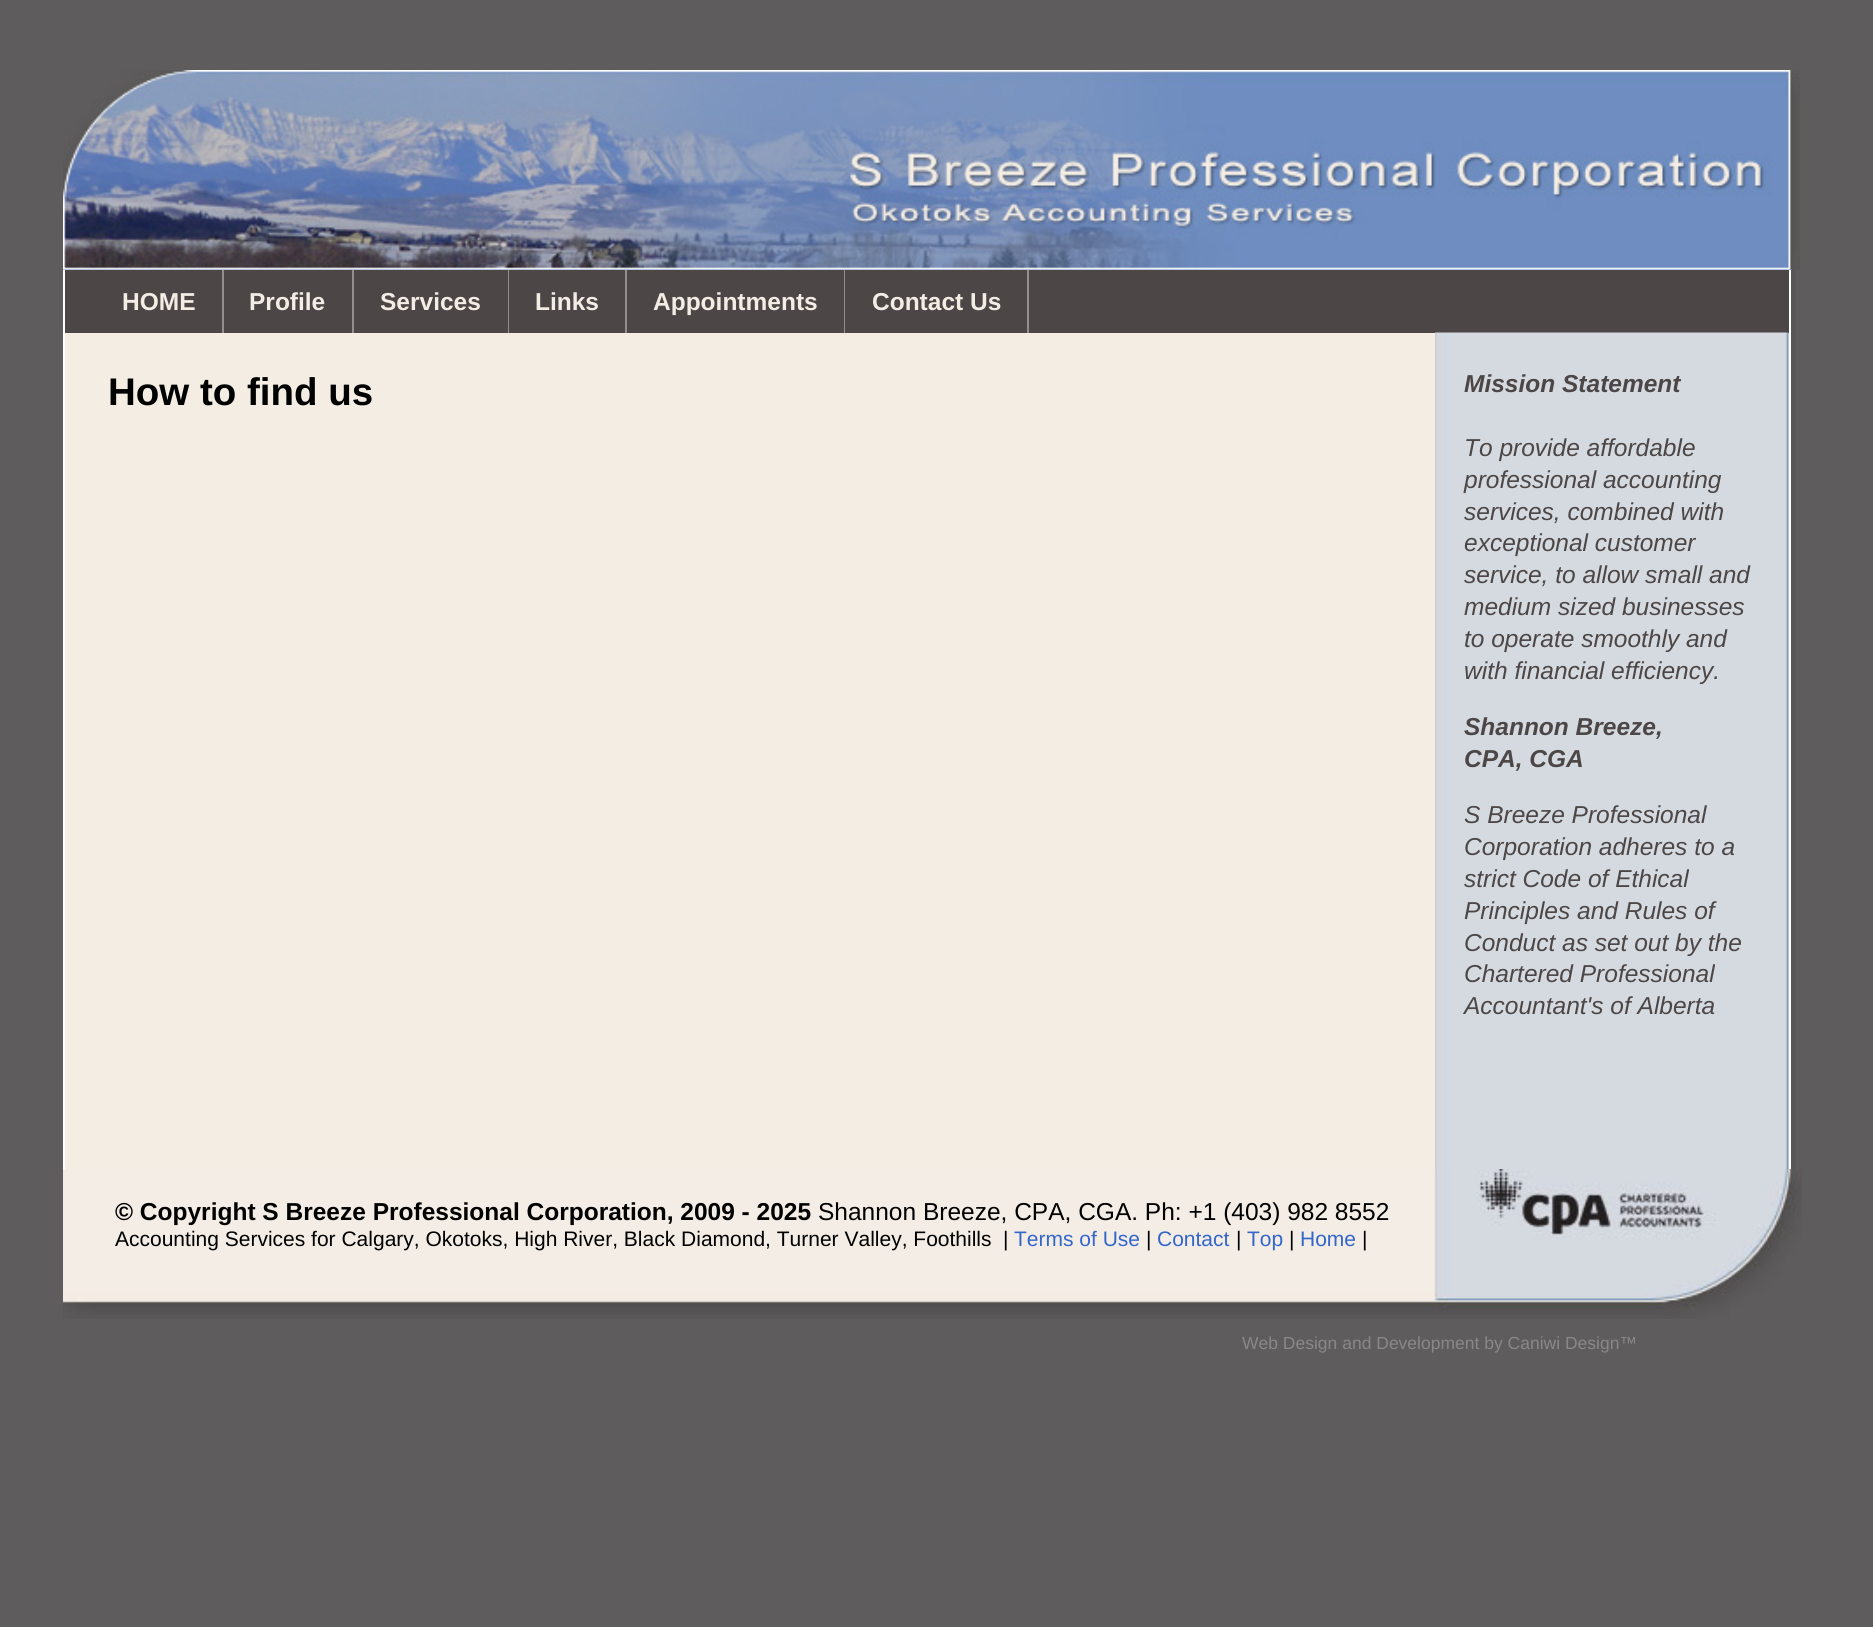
#include <cairo.h>
#include <math.h>
#include <stddef.h>


static void set_color(cairo_t *cr, unsigned color) {
    cairo_set_source_rgb(cr, (color >> 16) / 255.0, (color >> 8 & 255) / 255.0, (color & 255) / 255.0);
}

static void draw_text(cairo_t *cr, double x, double y, const char *s, const char *family, double size, int italic, int bold, unsigned color) {
    cairo_select_font_face(cr, family, italic ? CAIRO_FONT_SLANT_ITALIC : CAIRO_FONT_SLANT_NORMAL,
        bold ? CAIRO_FONT_WEIGHT_BOLD : CAIRO_FONT_WEIGHT_NORMAL);
    cairo_set_font_size(cr, size);
    set_color(cr, color);
    cairo_move_to(cr, x, y);
    cairo_show_text(cr, s);
}

static void fill_rect(cairo_t *cr, double x, double y, double w, double h, unsigned color) {
    set_color(cr, color);
    cairo_rectangle(cr, x, y, w, h);
    cairo_fill(cr);
}

static void draw_image(cairo_t *cr, const char *path, double x, double y, double w, double h) {
    cairo_surface_t *image = cairo_image_surface_create_from_png(path);
    cairo_save(cr);
    cairo_set_source_surface(cr, image, x, y);
    cairo_rectangle(cr, x, y, w, h);
    cairo_fill(cr);
    cairo_restore(cr);
    cairo_surface_destroy(image);
}

int main(void) {
    cairo_surface_t *surface = cairo_image_surface_create(CAIRO_FORMAT_RGB24, 1873, 1627);
    cairo_t *cr = cairo_create(surface);
    cairo_font_options_t *options = cairo_font_options_create();
    cairo_font_options_set_hint_metrics(options, CAIRO_HINT_METRICS_OFF);
    cairo_font_options_set_hint_style(options, CAIRO_HINT_STYLE_NONE);
    cairo_set_font_options(cr, options);
    cairo_set_miter_limit(cr, 4);
    set_color(cr, 0x5E5C5C);
    cairo_paint(cr);
    draw_image(cr, "assets/img1.png", 1791, 269, 5, 900);
    fill_rect(cr, 63, 269, 1729, 1, 0x6E8DC0);
    draw_image(cr, "assets/img2.png", 63, 70, 1737, 200);
    fill_rect(cr, 65, 270, 1724, 63, 0x4C4646);
    fill_rect(cr, 1789, 270, 2, 899, 0xFFFFFF);
    fill_rect(cr, 63, 270, 2, 899, 0xFFFFFF);
    fill_rect(cr, 222, 270, 2, 63, 0x948E8E);
    draw_text(cr, 122, 310, "HOME", "Liberation Sans", 24.5, 0, 1, 0xF4EDE5);
    fill_rect(cr, 352, 270, 2, 63, 0x948E8E);
    draw_text(cr, 249, 310, "Profile", "Liberation Sans", 24.5, 0, 1, 0xF4EDE5);
    fill_rect(cr, 508, 270, 1, 63, 0x948E8E);
    draw_text(cr, 380, 310, "Services", "Liberation Sans", 24.5, 0, 1, 0xF4EDE5);
    fill_rect(cr, 625, 270, 2, 63, 0x948E8E);
    draw_text(cr, 535, 310, "Links", "Liberation Sans", 24.5, 0, 1, 0xF4EDE5);
    fill_rect(cr, 844, 270, 1, 63, 0x948E8E);
    draw_text(cr, 653, 310, "Appointments", "Liberation Sans", 24.5, 0, 1, 0xF4EDE5);
    fill_rect(cr, 1027, 270, 2, 63, 0x948E8E);
    draw_text(cr, 872, 310, "Contact Us", "Liberation Sans", 24.5, 0, 1, 0xF4EDE5);
    fill_rect(cr, 65, 333, 1724, 836, 0xF4EDE4);
    draw_image(cr, "assets/img3.png", 1435, 332, 354, 837);
    draw_text(cr, 108, 405, "How to find us", "Liberation Sans", 38.5, 0, 1, 0x000000);
    draw_text(cr, 1464, 392, "Mission Statement", "Liberation Sans", 24.5, 1, 1, 0x4C4646);
    draw_text(cr, 1464, 456, "To provide affordable", "Liberation Sans", 24.5, 1, 0, 0x4C4646);
    draw_text(cr, 1464, 488, "professional accounting", "Liberation Sans", 24.5, 1, 0, 0x4C4646);
    draw_text(cr, 1464, 520, "services, combined with", "Liberation Sans", 24.5, 1, 0, 0x4C4646);
    draw_text(cr, 1464, 551, "exceptional customer", "Liberation Sans", 24.5, 1, 0, 0x4C4646);
    draw_text(cr, 1464, 583, "service, to allow small and", "Liberation Sans", 24.5, 1, 0, 0x4C4646);
    draw_text(cr, 1464, 615, "medium sized businesses", "Liberation Sans", 24.5, 1, 0, 0x4C4646);
    draw_text(cr, 1464, 647, "to operate smoothly and", "Liberation Sans", 24.5, 1, 0, 0x4C4646);
    draw_text(cr, 1464, 679, "with financial efficiency.", "Liberation Sans", 24.5, 1, 0, 0x4C4646);
    draw_text(cr, 1464, 735, "Shannon Breeze,", "Liberation Sans", 24.5, 1, 1, 0x4C4646);
    draw_text(cr, 1464, 767, "CPA, CGA", "Liberation Sans", 24.5, 1, 1, 0x4C4646);
    draw_text(cr, 1464, 823, "S Breeze Professional", "Liberation Sans", 24.5, 1, 0, 0x4C4646);
    draw_text(cr, 1464, 855, "Corporation adheres to a", "Liberation Sans", 24.5, 1, 0, 0x4C4646);
    draw_text(cr, 1464, 887, "strict Code of Ethical", "Liberation Sans", 24.5, 1, 0, 0x4C4646);
    draw_text(cr, 1464, 919, "Principles and Rules of", "Liberation Sans", 24.5, 1, 0, 0x4C4646);
    draw_text(cr, 1464, 951, "Conduct as set out by the", "Liberation Sans", 24.5, 1, 0, 0x4C4646);
    draw_text(cr, 1464, 982, "Chartered Professional", "Liberation Sans", 24.5, 1, 0, 0x4C4646);
    draw_text(cr, 1464, 1014, "Accountant's of Alberta", "Liberation Sans", 24.5, 1, 0, 0x4C4646);
    draw_image(cr, "assets/img4.png", 63, 1169, 1739, 150);
    draw_text(cr, 115, 1220, "© Copyright S Breeze Professional Corporation, 2009 - 2025", "Liberation Sans", 24.5, 0, 1, 0x000000);
    draw_text(cr, 818, 1220, "Shannon Breeze, CPA, CGA. Ph: +1 (403) 982 8552", "Liberation Sans", 24.5, 0, 0, 0x000000);
    draw_text(cr, 115, 1246, "Accounting Services for Calgary, Okotoks, High River, Black Diamond, Turner Valley, Foothills", "Liberation Sans", 21, 0, 0, 0x000000);
    draw_text(cr, 1003, 1246, "|", "Liberation Sans", 21, 0, 0, 0x000000);
    draw_text(cr, 1014, 1246, "Terms of Use", "Liberation Sans", 21, 0, 0, 0x3366CC);
    draw_text(cr, 1146, 1246, "|", "Liberation Sans", 21, 0, 0, 0x000000);
    draw_text(cr, 1157, 1246, "Contact", "Liberation Sans", 21, 0, 0, 0x3366CC);
    draw_text(cr, 1236, 1246, "|", "Liberation Sans", 21, 0, 0, 0x000000);
    draw_text(cr, 1247, 1246, "Top", "Liberation Sans", 21, 0, 0, 0x3366CC);
    draw_text(cr, 1289, 1246, "|", "Liberation Sans", 21, 0, 0, 0x000000);
    draw_text(cr, 1300, 1246, "Home", "Liberation Sans", 21, 0, 0, 0x3366CC);
    draw_text(cr, 1362, 1246, "|", "Liberation Sans", 21, 0, 0, 0x000000);
    draw_text(cr, 1242, 1349, "Web Design and Development by Caniwi Design™", "Liberation Sans", 17.5, 0, 0, 0x888888);
    cairo_surface_write_to_png(surface, "output.png");
    cairo_font_options_destroy(options);
    cairo_destroy(cr);
    cairo_surface_destroy(surface);
    return 0;
}
